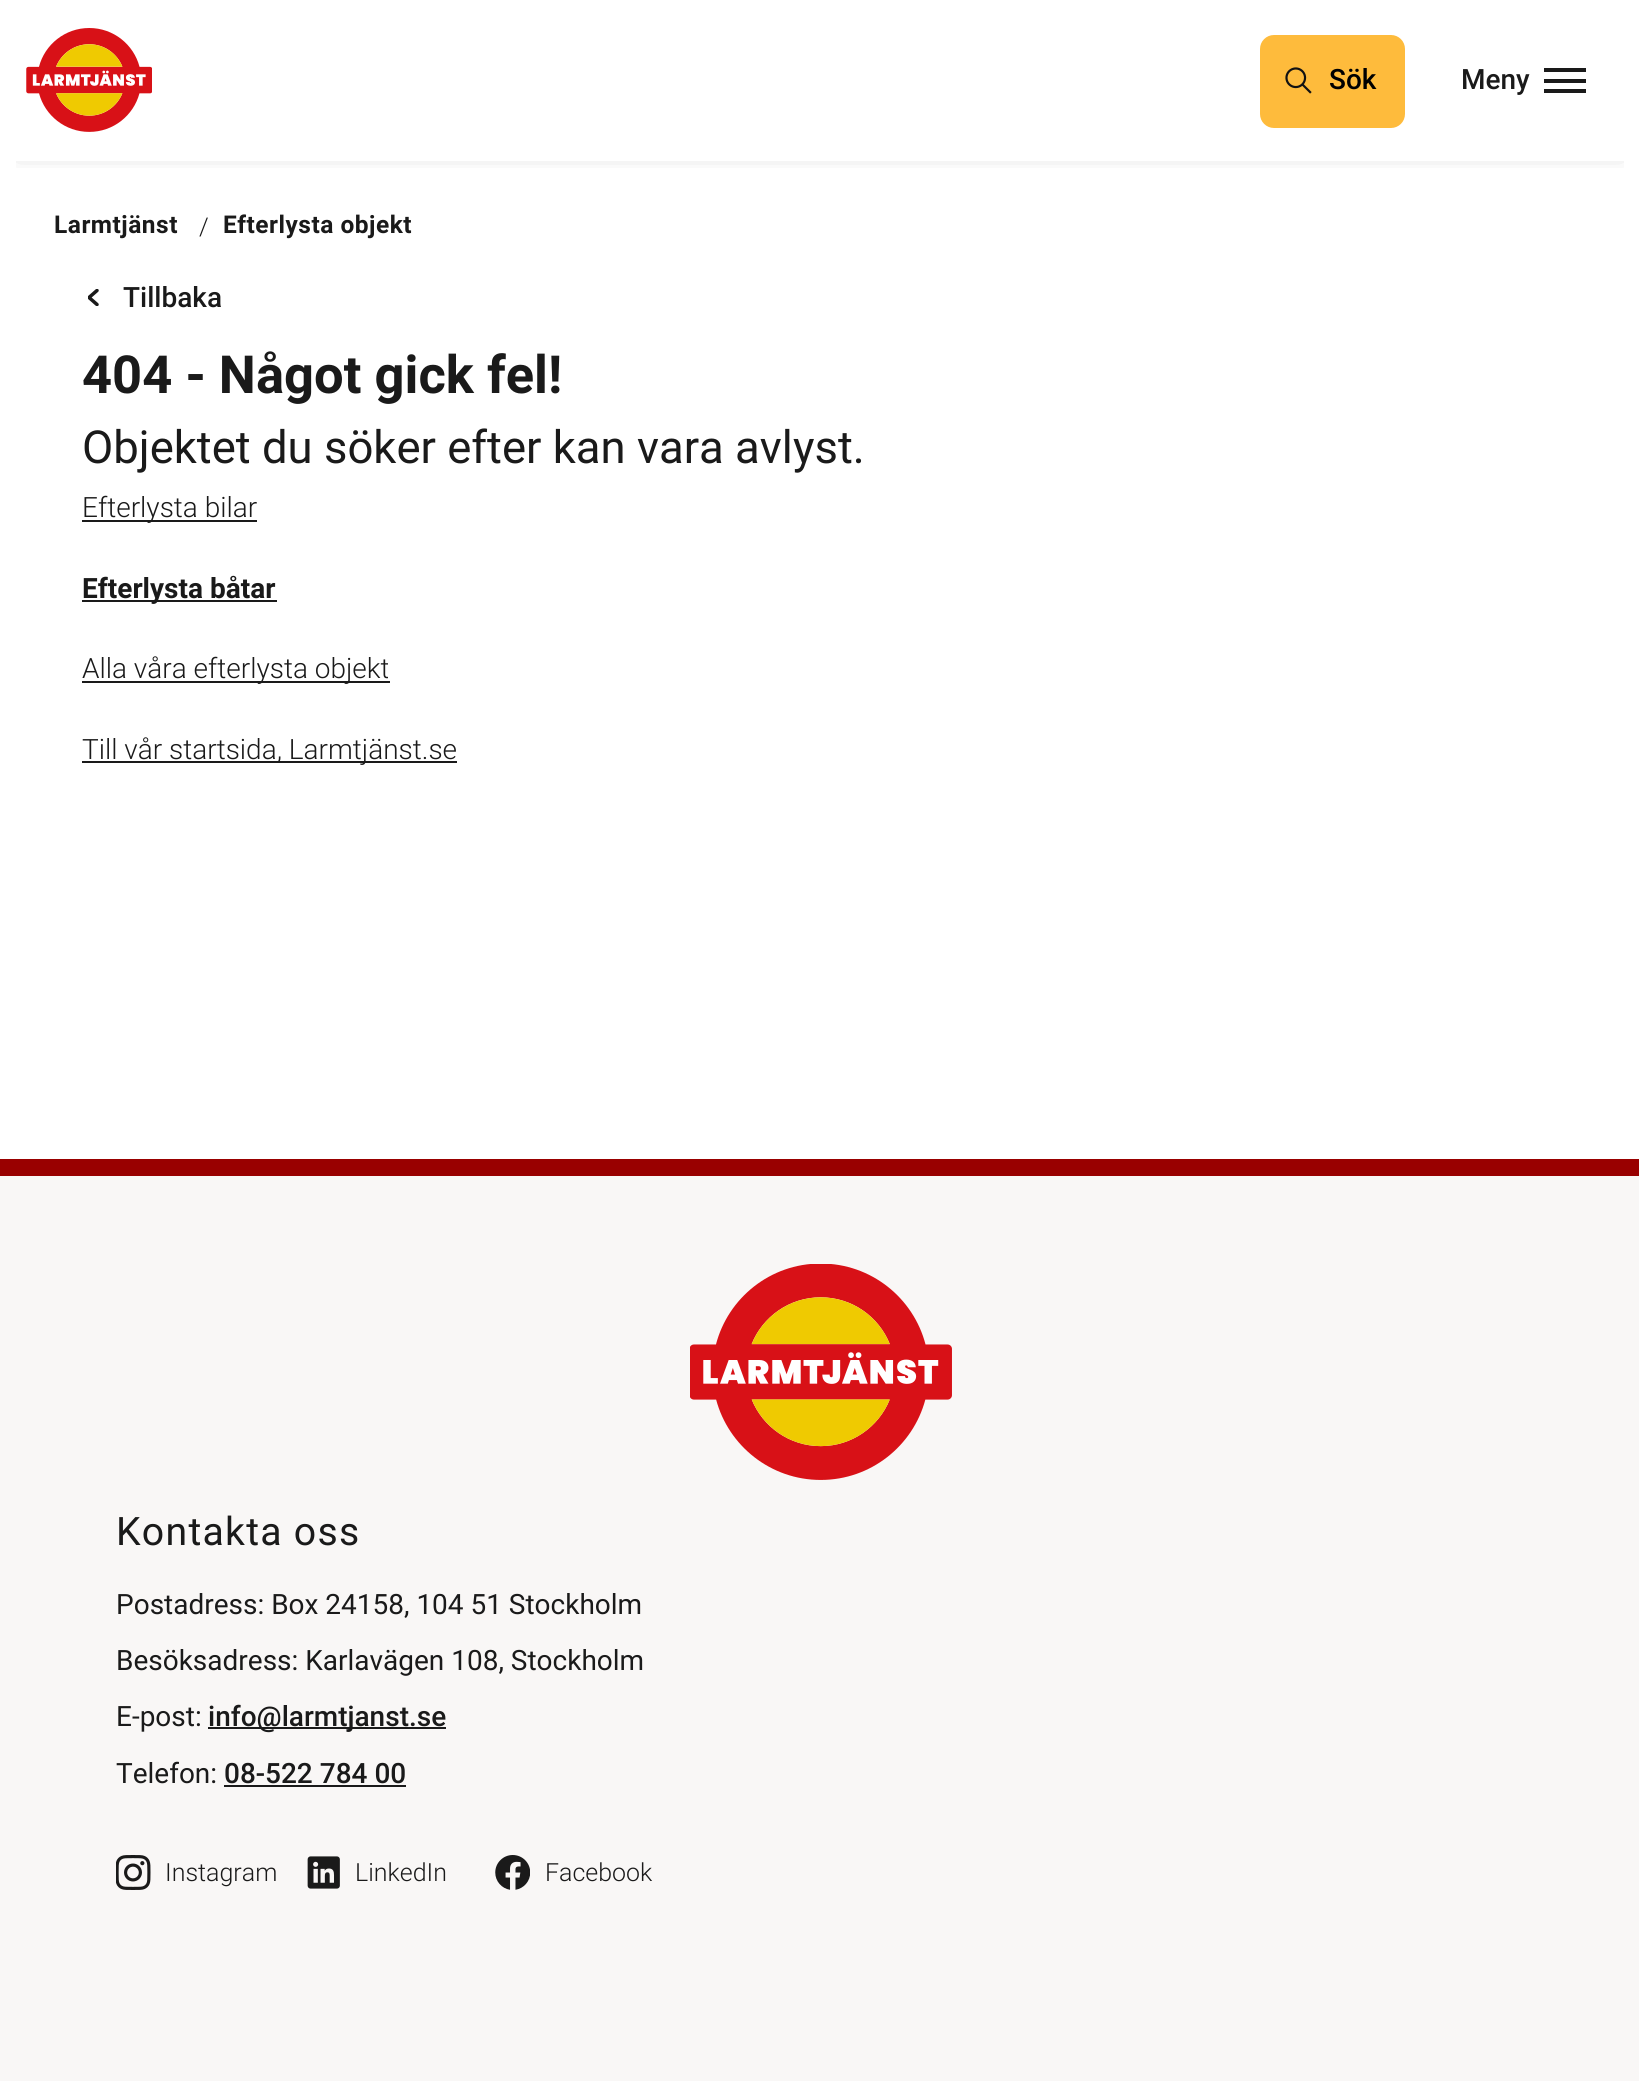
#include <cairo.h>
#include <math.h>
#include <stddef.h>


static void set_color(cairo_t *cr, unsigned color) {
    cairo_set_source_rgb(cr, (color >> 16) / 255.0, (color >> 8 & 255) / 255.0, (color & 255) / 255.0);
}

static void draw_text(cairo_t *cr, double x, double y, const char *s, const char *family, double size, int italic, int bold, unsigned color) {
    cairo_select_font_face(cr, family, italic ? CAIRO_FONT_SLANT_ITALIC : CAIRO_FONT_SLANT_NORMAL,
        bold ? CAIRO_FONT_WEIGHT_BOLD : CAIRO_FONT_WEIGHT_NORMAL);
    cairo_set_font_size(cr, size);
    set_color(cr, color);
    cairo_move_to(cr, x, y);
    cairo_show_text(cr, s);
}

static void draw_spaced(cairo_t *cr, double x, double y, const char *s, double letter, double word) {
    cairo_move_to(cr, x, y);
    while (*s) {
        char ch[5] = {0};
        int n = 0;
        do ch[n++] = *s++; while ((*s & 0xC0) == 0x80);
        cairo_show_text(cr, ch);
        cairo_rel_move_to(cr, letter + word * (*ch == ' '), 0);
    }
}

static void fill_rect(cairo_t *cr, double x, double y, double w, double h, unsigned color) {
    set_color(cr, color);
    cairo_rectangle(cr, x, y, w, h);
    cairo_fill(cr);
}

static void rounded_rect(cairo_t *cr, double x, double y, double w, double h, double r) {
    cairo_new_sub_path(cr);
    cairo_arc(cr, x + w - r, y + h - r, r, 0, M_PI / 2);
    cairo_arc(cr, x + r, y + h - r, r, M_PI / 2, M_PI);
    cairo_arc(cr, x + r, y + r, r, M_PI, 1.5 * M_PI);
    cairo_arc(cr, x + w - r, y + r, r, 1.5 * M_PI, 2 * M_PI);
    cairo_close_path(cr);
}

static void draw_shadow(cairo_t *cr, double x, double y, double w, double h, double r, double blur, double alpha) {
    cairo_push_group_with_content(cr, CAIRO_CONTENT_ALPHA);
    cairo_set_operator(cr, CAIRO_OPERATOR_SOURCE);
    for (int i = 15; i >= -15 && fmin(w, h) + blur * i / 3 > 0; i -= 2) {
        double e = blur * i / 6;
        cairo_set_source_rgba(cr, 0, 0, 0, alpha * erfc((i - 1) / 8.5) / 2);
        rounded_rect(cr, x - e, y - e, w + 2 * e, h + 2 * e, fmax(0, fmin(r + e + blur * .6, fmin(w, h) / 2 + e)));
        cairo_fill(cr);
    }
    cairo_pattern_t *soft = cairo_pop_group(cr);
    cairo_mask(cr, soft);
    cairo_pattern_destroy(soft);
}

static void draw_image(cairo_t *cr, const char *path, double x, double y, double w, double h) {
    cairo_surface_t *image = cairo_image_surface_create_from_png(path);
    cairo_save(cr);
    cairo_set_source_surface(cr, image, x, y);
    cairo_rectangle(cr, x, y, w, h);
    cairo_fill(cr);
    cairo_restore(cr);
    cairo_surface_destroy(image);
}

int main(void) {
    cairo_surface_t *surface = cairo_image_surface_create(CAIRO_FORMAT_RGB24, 1639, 2081);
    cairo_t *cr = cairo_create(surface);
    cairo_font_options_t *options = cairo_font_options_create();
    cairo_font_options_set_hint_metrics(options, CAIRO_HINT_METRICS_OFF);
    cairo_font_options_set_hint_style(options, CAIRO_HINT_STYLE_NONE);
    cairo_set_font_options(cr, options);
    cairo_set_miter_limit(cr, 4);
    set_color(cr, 0xFFFFFF);
    cairo_paint(cr);
    cairo_save(cr);
    cairo_rectangle(cr, 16, 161, 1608, 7);
    cairo_clip(cr);
    set_color(cr, 0x000000);
    draw_shadow(cr, 18, 25, 1604, 126, 0, 12, 0.25);
    cairo_restore(cr);
    draw_image(cr, "assets/img1.png", 26, 28, 126, 104);
    set_color(cr, 0xFEBB3C);
    rounded_rect(cr, 1260, 35, 145, 93, 14);
    cairo_fill(cr);
    draw_image(cr, "assets/img2.png", 1285, 67, 27, 27);
    draw_text(cr, 1329, 89, "Sök", "Roboto Medium", 28, 0, 0, 0x000000);
    draw_text(cr, 1461, 89, "Meny", "Roboto Medium", 28, 0, 0, 0x1A1A1A);
    fill_rect(cr, 1544, 68, 42, 4, 0x1A1A1A);
    fill_rect(cr, 1544, 79, 42, 4, 0x1A1A1A);
    fill_rect(cr, 1544, 89, 42, 4, 0x1A1A1A);
    cairo_select_font_face(cr, "Roboto", CAIRO_FONT_SLANT_NORMAL, CAIRO_FONT_WEIGHT_BOLD);
    cairo_set_font_size(cr, 24.5);
    draw_spaced(cr, 54, 233, "Larmtjänst", 0.5, 0);
    cairo_select_font_face(cr, "Roboto Light", CAIRO_FONT_SLANT_NORMAL, CAIRO_FONT_WEIGHT_NORMAL);
    draw_spaced(cr, 199, 235, "/", 0.5, 0);
    cairo_select_font_face(cr, "Roboto", CAIRO_FONT_SLANT_NORMAL, CAIRO_FONT_WEIGHT_BOLD);
    draw_spaced(cr, 223, 233, "Efterlysta objekt", 0.5, 0);
    cairo_save(cr);
    cairo_rectangle(cr, 88, 289, 12, 17);
    cairo_clip(cr);
    cairo_new_path(cr);
    cairo_move_to(cr, 97, 304.5);
    cairo_line_to(cr, 89, 297.5);
    cairo_line_to(cr, 97, 290.5);
    cairo_set_line_width(cr, 3.5);
    cairo_set_line_cap(cr, CAIRO_LINE_CAP_ROUND);
    cairo_set_line_join(cr, CAIRO_LINE_JOIN_ROUND);
    cairo_stroke(cr);
    cairo_restore(cr);
    draw_text(cr, 123, 307, "Tillbaka", "Roboto Medium", 28, 0, 0, 0x1A1A1A);
    draw_text(cr, 82, 393, "404 - Något gick fel!", "Roboto", 52.5, 0, 1, 0x1A1A1A);
    draw_text(cr, 82, 463, "Objektet du söker efter kan vara avlyst.", "Roboto", 45.5, 0, 0, 0x1A1A1A);
    fill_rect(cr, 82, 520, 175, 2, 0x1A1A1A);
    draw_text(cr, 82, 517, "Efterlysta bilar", "Roboto Light", 28, 0, 0, 0x1A1A1A);
    fill_rect(cr, 82, 600, 195, 2, 0x1A1A1A);
    draw_text(cr, 82, 598, "Efterlysta båtar", "Roboto", 28, 0, 1, 0x1A1A1A);
    fill_rect(cr, 82, 681, 308, 2, 0x1A1A1A);
    draw_text(cr, 82, 678, "Alla våra efterlysta objekt", "Roboto Light", 28, 0, 0, 0x1A1A1A);
    fill_rect(cr, 82, 761, 375, 2, 0x1A1A1A);
    draw_text(cr, 82, 759, "Till vår startsida, Larmtjänst.se", "Roboto Light", 28, 0, 0, 0x1A1A1A);
    fill_rect(cr, 0, 1176, 1639, 905, 0xF9F7F6);
    fill_rect(cr, 0, 1159, 1639, 17, 0x990000);
    draw_image(cr, "assets/img3.png", 690, 1264, 262, 216);
    cairo_select_font_face(cr, "Roboto", CAIRO_FONT_SLANT_NORMAL, CAIRO_FONT_WEIGHT_NORMAL);
    cairo_set_font_size(cr, 39.25);
    set_color(cr, 0x1A1A1A);
    draw_spaced(cr, 116, 1545, "Kontakta oss", 1.25, 0);
    draw_text(cr, 116, 1614, "Postadress: Box 24158, 104 51 Stockholm", "Roboto", 28, 0, 0, 0x1A1A1A);
    draw_text(cr, 116, 1670, "Besöksadress: Karlavägen 108, Stockholm", "Roboto", 28, 0, 0, 0x1A1A1A);
    draw_text(cr, 116, 1726, "E-post:", "Roboto", 28, 0, 0, 0x1A1A1A);
    fill_rect(cr, 208, 1727, 238, 2, 0x1A1A1A);
    draw_text(cr, 208, 1726, "info@larmtjanst.se", "Roboto Medium", 28, 0, 0, 0x1A1A1A);
    draw_text(cr, 116, 1783, "Telefon:", "Roboto", 28, 0, 0, 0x1A1A1A);
    draw_text(cr, 224, 1783, "08-522 784 00", "Roboto Medium", 28, 0, 0, 0x1A1A1A);
    fill_rect(cr, 224, 1785, 182, 2, 0x1A1A1A);
    draw_image(cr, "assets/img4.png", 116, 1855, 35, 35);
    draw_text(cr, 165, 1881, "Instagram", "Roboto Light", 25, 0, 0, 0x1A1A1A);
    draw_image(cr, "assets/img5.png", 307, 1856, 33, 33);
    draw_text(cr, 355, 1881, "LinkedIn", "Roboto Light", 25, 0, 0, 0x1A1A1A);
    draw_image(cr, "assets/img6.png", 495, 1855, 35, 35);
    draw_text(cr, 545, 1881, "Facebook", "Roboto Light", 25, 0, 0, 0x1A1A1A);
    cairo_surface_write_to_png(surface, "output.png");
    cairo_font_options_destroy(options);
    cairo_destroy(cr);
    cairo_surface_destroy(surface);
    return 0;
}
